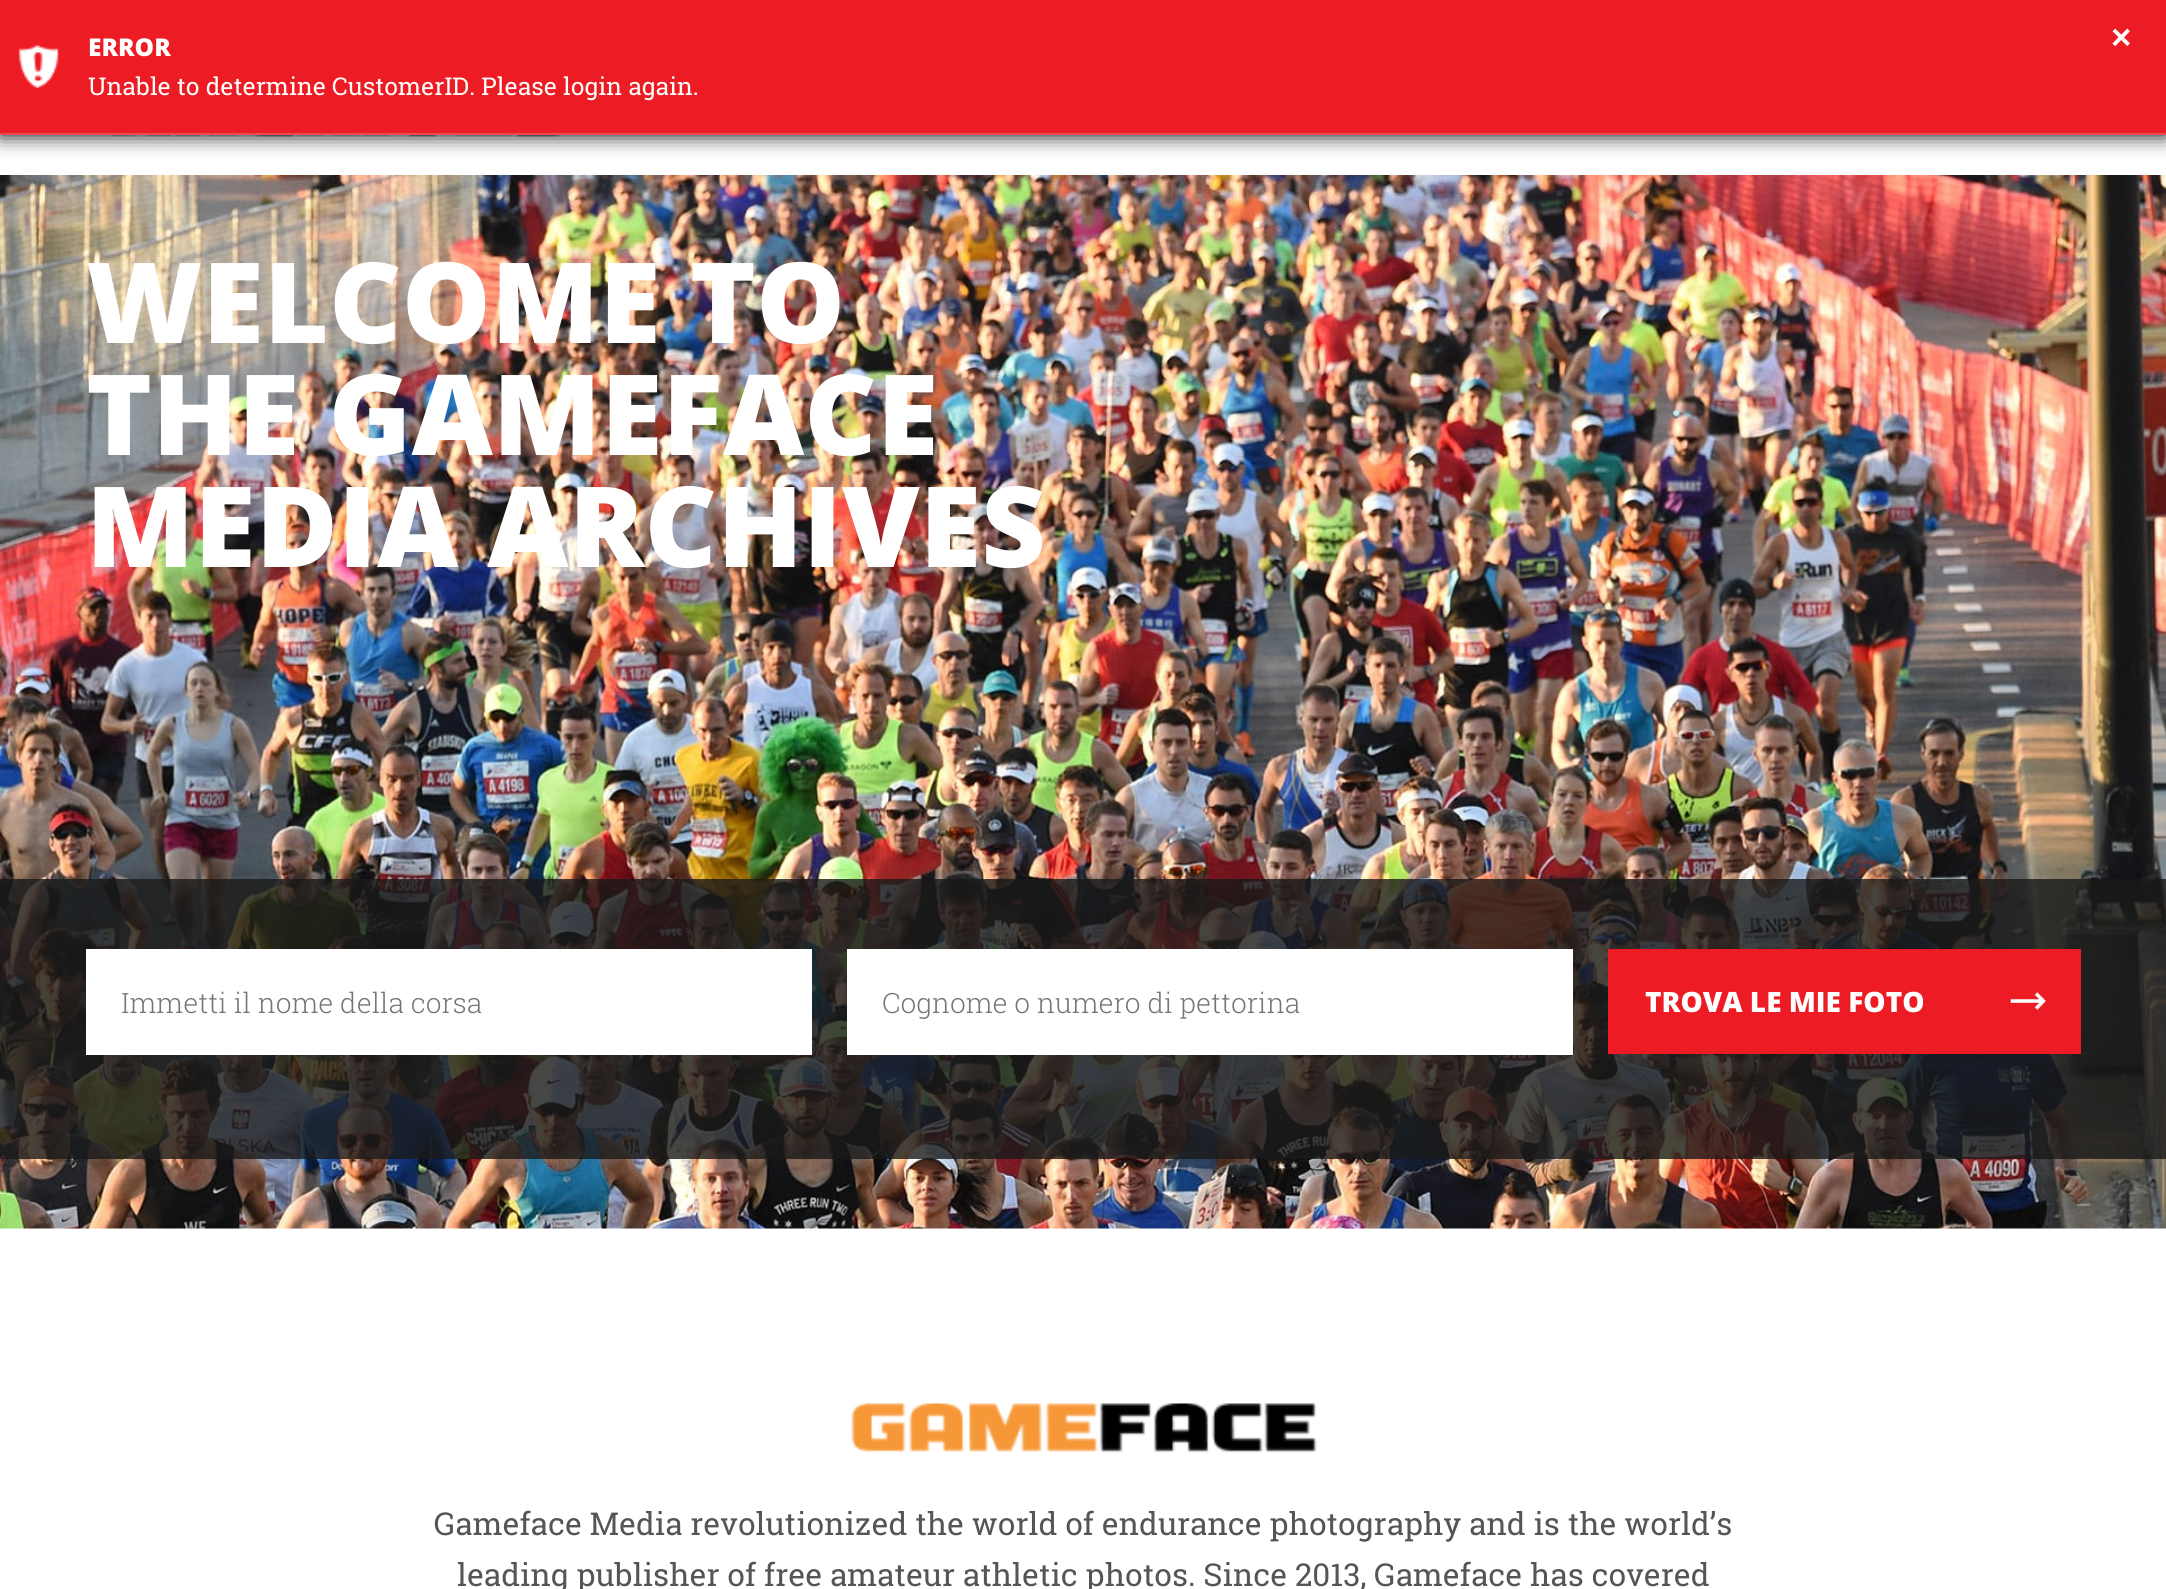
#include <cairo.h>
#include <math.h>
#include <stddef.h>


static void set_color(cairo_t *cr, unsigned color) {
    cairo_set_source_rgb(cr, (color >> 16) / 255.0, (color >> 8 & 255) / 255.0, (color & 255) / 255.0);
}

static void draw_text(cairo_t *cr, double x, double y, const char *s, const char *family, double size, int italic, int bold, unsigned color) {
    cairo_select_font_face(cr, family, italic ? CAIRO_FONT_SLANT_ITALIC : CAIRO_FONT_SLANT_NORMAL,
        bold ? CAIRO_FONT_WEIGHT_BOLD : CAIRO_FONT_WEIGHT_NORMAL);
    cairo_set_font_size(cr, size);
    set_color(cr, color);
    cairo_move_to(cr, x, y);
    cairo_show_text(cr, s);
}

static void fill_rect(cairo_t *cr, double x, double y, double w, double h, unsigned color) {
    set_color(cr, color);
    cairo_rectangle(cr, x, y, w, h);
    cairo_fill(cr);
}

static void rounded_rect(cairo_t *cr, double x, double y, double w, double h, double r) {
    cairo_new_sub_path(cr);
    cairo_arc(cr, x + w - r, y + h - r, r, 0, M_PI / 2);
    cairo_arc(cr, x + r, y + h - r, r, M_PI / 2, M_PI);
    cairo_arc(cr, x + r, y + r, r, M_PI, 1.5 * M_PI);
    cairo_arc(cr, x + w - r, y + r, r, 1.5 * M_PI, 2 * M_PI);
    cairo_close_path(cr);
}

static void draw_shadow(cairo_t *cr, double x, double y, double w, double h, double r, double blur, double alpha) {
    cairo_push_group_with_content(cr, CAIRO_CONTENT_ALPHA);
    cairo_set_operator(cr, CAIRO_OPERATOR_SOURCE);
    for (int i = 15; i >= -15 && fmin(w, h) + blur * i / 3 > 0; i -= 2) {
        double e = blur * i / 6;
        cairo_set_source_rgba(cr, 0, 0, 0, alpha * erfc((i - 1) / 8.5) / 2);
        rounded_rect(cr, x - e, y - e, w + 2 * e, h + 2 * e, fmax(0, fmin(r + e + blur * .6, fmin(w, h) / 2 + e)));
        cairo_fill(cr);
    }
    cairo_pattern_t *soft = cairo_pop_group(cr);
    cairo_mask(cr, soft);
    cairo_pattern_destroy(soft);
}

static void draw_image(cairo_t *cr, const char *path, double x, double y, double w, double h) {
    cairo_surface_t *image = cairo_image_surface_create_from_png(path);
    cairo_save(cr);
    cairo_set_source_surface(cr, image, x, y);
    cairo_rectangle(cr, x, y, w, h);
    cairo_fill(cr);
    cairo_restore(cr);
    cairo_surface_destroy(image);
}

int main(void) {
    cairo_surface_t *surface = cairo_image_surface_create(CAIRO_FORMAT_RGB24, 2166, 1589);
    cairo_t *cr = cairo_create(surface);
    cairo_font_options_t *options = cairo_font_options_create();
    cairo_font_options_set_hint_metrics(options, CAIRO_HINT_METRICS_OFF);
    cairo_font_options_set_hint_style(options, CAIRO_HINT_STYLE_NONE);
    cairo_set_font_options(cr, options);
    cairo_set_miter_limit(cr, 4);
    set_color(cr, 0xFFFFFF);
    cairo_paint(cr);
    draw_image(cr, "assets/img2.png", 111, 135, 453, 2);
    set_color(cr, 0x000000);
    draw_shadow(cr, 0, 0, 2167, 135, 0, 10.5, 1);
    fill_rect(cr, 0, 0, 2166, 133, 0xED1C24);
    draw_image(cr, "assets/img1.png", 18, 45, 41, 43);
    fill_rect(cr, 0, 133, 2166, 2, 0xF14B52);
    draw_text(cr, 88, 56, "ERROR", "Open Sans ExtraBold", 24.5, 0, 0, 0xFFFFFF);
    draw_text(cr, 2111, 49, "×", "Liberation Sans", 35, 0, 1, 0xFFFFFF);
    draw_text(cr, 88, 95, "Unable to determine CustomerID. Please login again.", "Roboto Slab", 24.5, 0, 0, 0xFFFFFF);
    draw_image(cr, "assets/img3.png", 0, 175, 2166, 1054);
    draw_text(cr, 86, 343, "WELCOME TO", "Open Sans ExtraBold", 112, 0, 0, 0xFFFFFF);
    draw_text(cr, 86, 455, "THE GAMEFACE", "Open Sans ExtraBold", 112, 0, 0, 0xFFFFFF);
    draw_text(cr, 86, 567, "MEDIA ARCHIVES", "Open Sans ExtraBold", 112, 0, 0, 0xFFFFFF);
    cairo_set_source_rgba(cr, 0.102, 0.102, 0.102, 0.8);
    cairo_rectangle(cr, 0, 879, 2166, 280);
    cairo_fill(cr);
    fill_rect(cr, 86, 949, 726, 106, 0xFFFFFF);
    draw_text(cr, 121, 1013, "Immetti il nome della corsa", "Roboto Slab Light", 28, 0, 0, 0x757575);
    fill_rect(cr, 847, 949, 726, 106, 0xFFFFFF);
    draw_text(cr, 882, 1013, "Cognome o numero di pettorina", "Roboto Slab Light", 28, 0, 0, 0x757575);
    fill_rect(cr, 1608, 949, 473, 105, 0xED1C24);
    draw_text(cr, 1645, 1012, "TROVA LE MIE FOTO", "Open Sans ExtraBold", 28, 0, 0, 0xFFFFFF);
    draw_image(cr, "assets/img4.png", 2010, 992, 36, 18);
    draw_image(cr, "assets/img5.png", 850, 1403, 467, 50);
    draw_text(cr, 434, 1535, "Gameface Media revolutionized the world of endurance photography and is the world’s", "Roboto Slab", 31.5, 0, 0, 0x555555);
    draw_text(cr, 457, 1586, "leading publisher of free amateur athletic photos. Since 2013, Gameface has covered", "Roboto Slab", 31.5, 0, 0, 0x555555);
    cairo_surface_write_to_png(surface, "output.png");
    cairo_font_options_destroy(options);
    cairo_destroy(cr);
    cairo_surface_destroy(surface);
    return 0;
}
